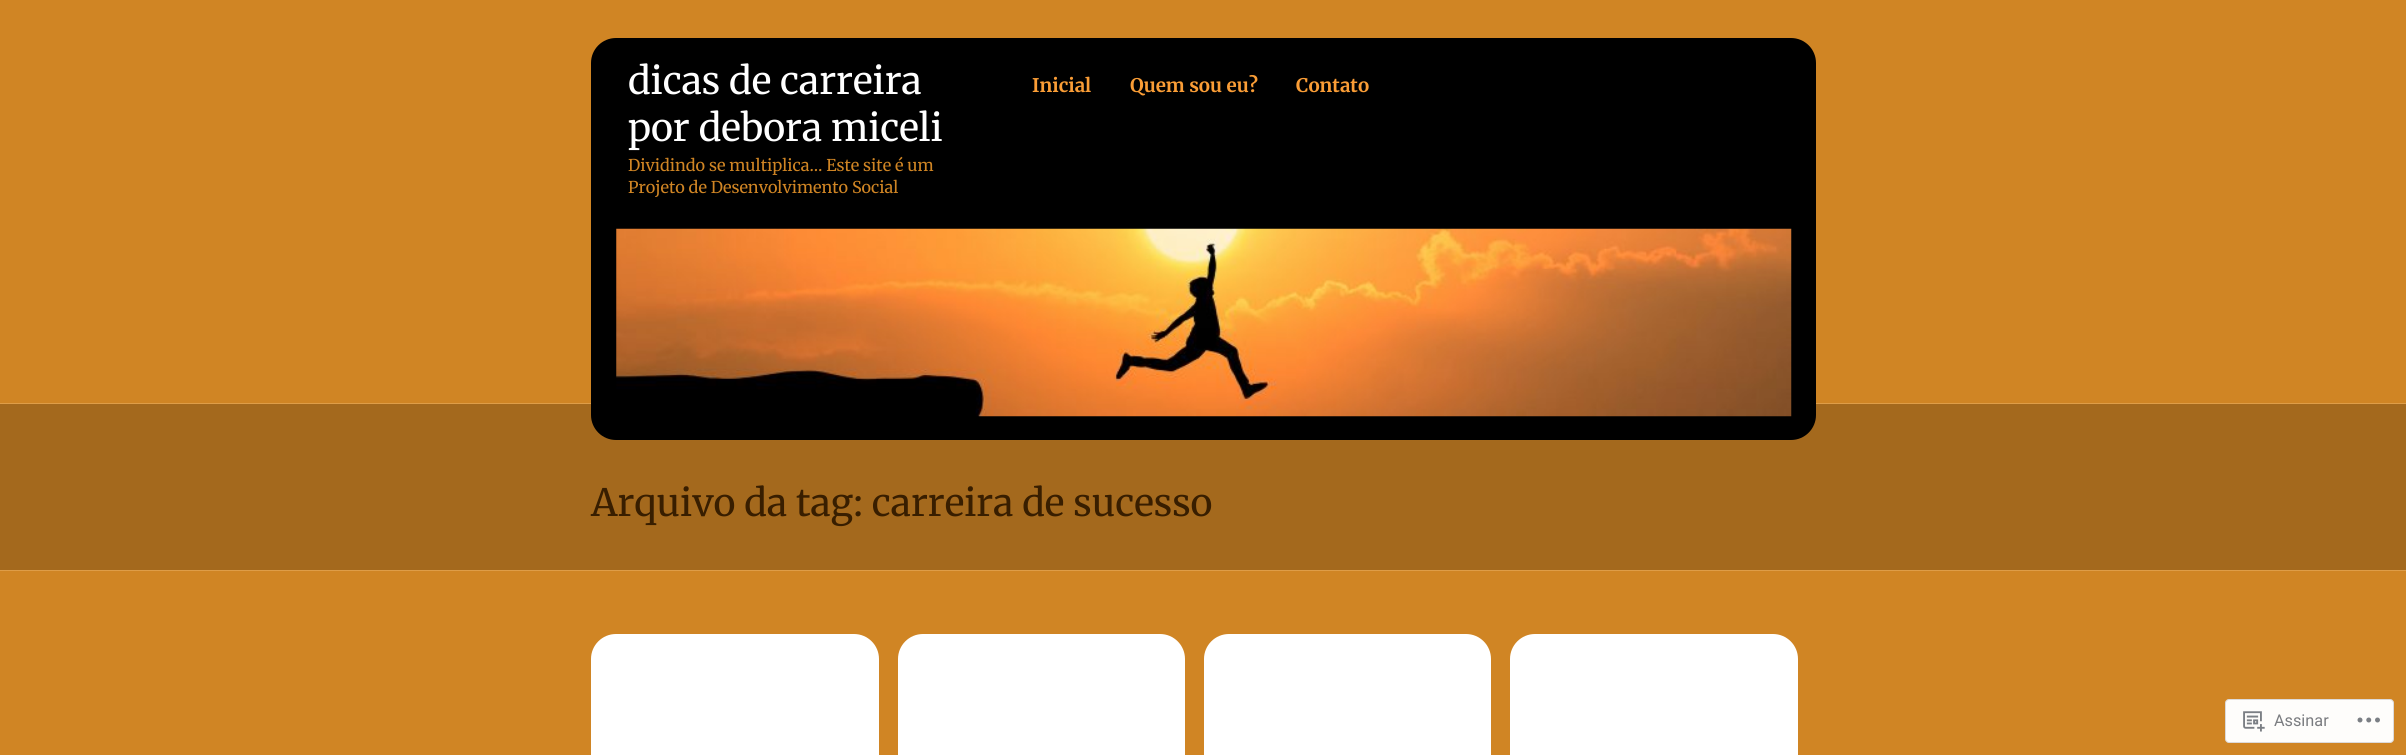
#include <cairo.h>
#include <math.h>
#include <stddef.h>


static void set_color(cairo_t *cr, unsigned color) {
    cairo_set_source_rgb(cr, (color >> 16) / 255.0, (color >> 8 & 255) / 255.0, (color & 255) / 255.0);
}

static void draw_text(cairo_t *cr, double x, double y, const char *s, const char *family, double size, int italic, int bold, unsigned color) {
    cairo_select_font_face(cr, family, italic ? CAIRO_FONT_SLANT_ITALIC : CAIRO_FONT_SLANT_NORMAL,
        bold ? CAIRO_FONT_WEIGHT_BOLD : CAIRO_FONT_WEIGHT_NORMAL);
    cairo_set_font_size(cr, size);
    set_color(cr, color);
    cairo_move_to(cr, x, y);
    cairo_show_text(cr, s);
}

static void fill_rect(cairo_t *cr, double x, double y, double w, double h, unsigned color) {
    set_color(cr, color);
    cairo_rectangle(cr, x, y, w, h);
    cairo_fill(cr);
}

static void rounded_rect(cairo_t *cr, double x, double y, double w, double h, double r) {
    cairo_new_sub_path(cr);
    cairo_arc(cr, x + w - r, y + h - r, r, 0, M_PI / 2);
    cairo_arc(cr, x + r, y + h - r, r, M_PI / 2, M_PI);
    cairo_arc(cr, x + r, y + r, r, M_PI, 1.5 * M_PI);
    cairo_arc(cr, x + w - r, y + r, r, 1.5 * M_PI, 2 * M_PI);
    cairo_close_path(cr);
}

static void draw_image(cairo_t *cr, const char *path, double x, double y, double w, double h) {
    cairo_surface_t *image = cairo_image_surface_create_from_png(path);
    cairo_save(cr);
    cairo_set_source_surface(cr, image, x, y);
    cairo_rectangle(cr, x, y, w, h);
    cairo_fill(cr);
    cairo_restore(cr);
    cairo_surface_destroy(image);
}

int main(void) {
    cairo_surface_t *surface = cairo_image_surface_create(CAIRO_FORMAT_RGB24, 2406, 755);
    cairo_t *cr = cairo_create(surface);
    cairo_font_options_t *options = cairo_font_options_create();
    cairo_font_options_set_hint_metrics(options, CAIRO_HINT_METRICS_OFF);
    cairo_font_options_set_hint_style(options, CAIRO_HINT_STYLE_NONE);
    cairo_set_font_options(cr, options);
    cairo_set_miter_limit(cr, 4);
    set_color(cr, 0xD08524);
    cairo_paint(cr);
    fill_rect(cr, 0, 404, 2406, 166, 0xA4691D);
    fill_rect(cr, 0, 403, 2406, 1, 0xDE9D48);
    set_color(cr, 0x000000);
    rounded_rect(cr, 591, 38, 1225, 402, 25);
    cairo_fill(cr);
    draw_text(cr, 628, 94, "dicas de carreira", "Merriweather", 37.5, 0, 0, 0xFFFFFF);
    draw_text(cr, 628, 141, "por debora miceli", "Merriweather", 37.5, 0, 0, 0xFFFFFF);
    draw_text(cr, 628, 171, "Dividindo se multiplica… Este site é um", "Merriweather", 16.25, 0, 0, 0xD08524);
    draw_text(cr, 628, 193, "Projeto de Desenvolvimento Social", "Merriweather", 16.25, 0, 0, 0xD08524);
    draw_text(cr, 1032, 92, "Inicial", "Merriweather", 18.75, 0, 1, 0xFA9D36);
    draw_text(cr, 1130, 92, "Quem sou eu?", "Merriweather", 18.75, 0, 1, 0xFA9D36);
    draw_text(cr, 1296, 92, "Contato", "Merriweather", 18.75, 0, 1, 0xFA9D36);
    draw_image(cr, "assets/img1.png", 616, 228, 1176, 189);
    fill_rect(cr, 0, 570, 2406, 1, 0xDE9D48);
    draw_text(cr, 591, 516, "Arquivo da tag: carreira de sucesso", "Merriweather", 37.5, 0, 0, 0x381E00);
    set_color(cr, 0xFFFFFF);
    rounded_rect(cr, 591, 634, 288, 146, 25);
    cairo_fill(cr);
    rounded_rect(cr, 898, 634, 287, 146, 25);
    cairo_fill(cr);
    rounded_rect(cr, 1204, 634, 287, 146, 25);
    cairo_fill(cr);
    rounded_rect(cr, 1510, 634, 288, 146, 25);
    cairo_fill(cr);
    set_color(cr, 0xFEFDFB);
    rounded_rect(cr, 2225.5, 699.5, 168, 43, 3.5);
    cairo_fill_preserve(cr);
    set_color(cr, 0xDCDADA);
    cairo_set_line_width(cr, 1);
    cairo_stroke(cr);
    draw_image(cr, "assets/img2.png", 2243, 711, 22, 21);
    draw_text(cr, 2274, 726, "Assinar", "Roboto", 16.25, 0, 0, 0x7A7C80);
    draw_image(cr, "assets/img3.png", 2357, 717, 23, 6);
    cairo_surface_write_to_png(surface, "output.png");
    cairo_font_options_destroy(options);
    cairo_destroy(cr);
    cairo_surface_destroy(surface);
    return 0;
}
